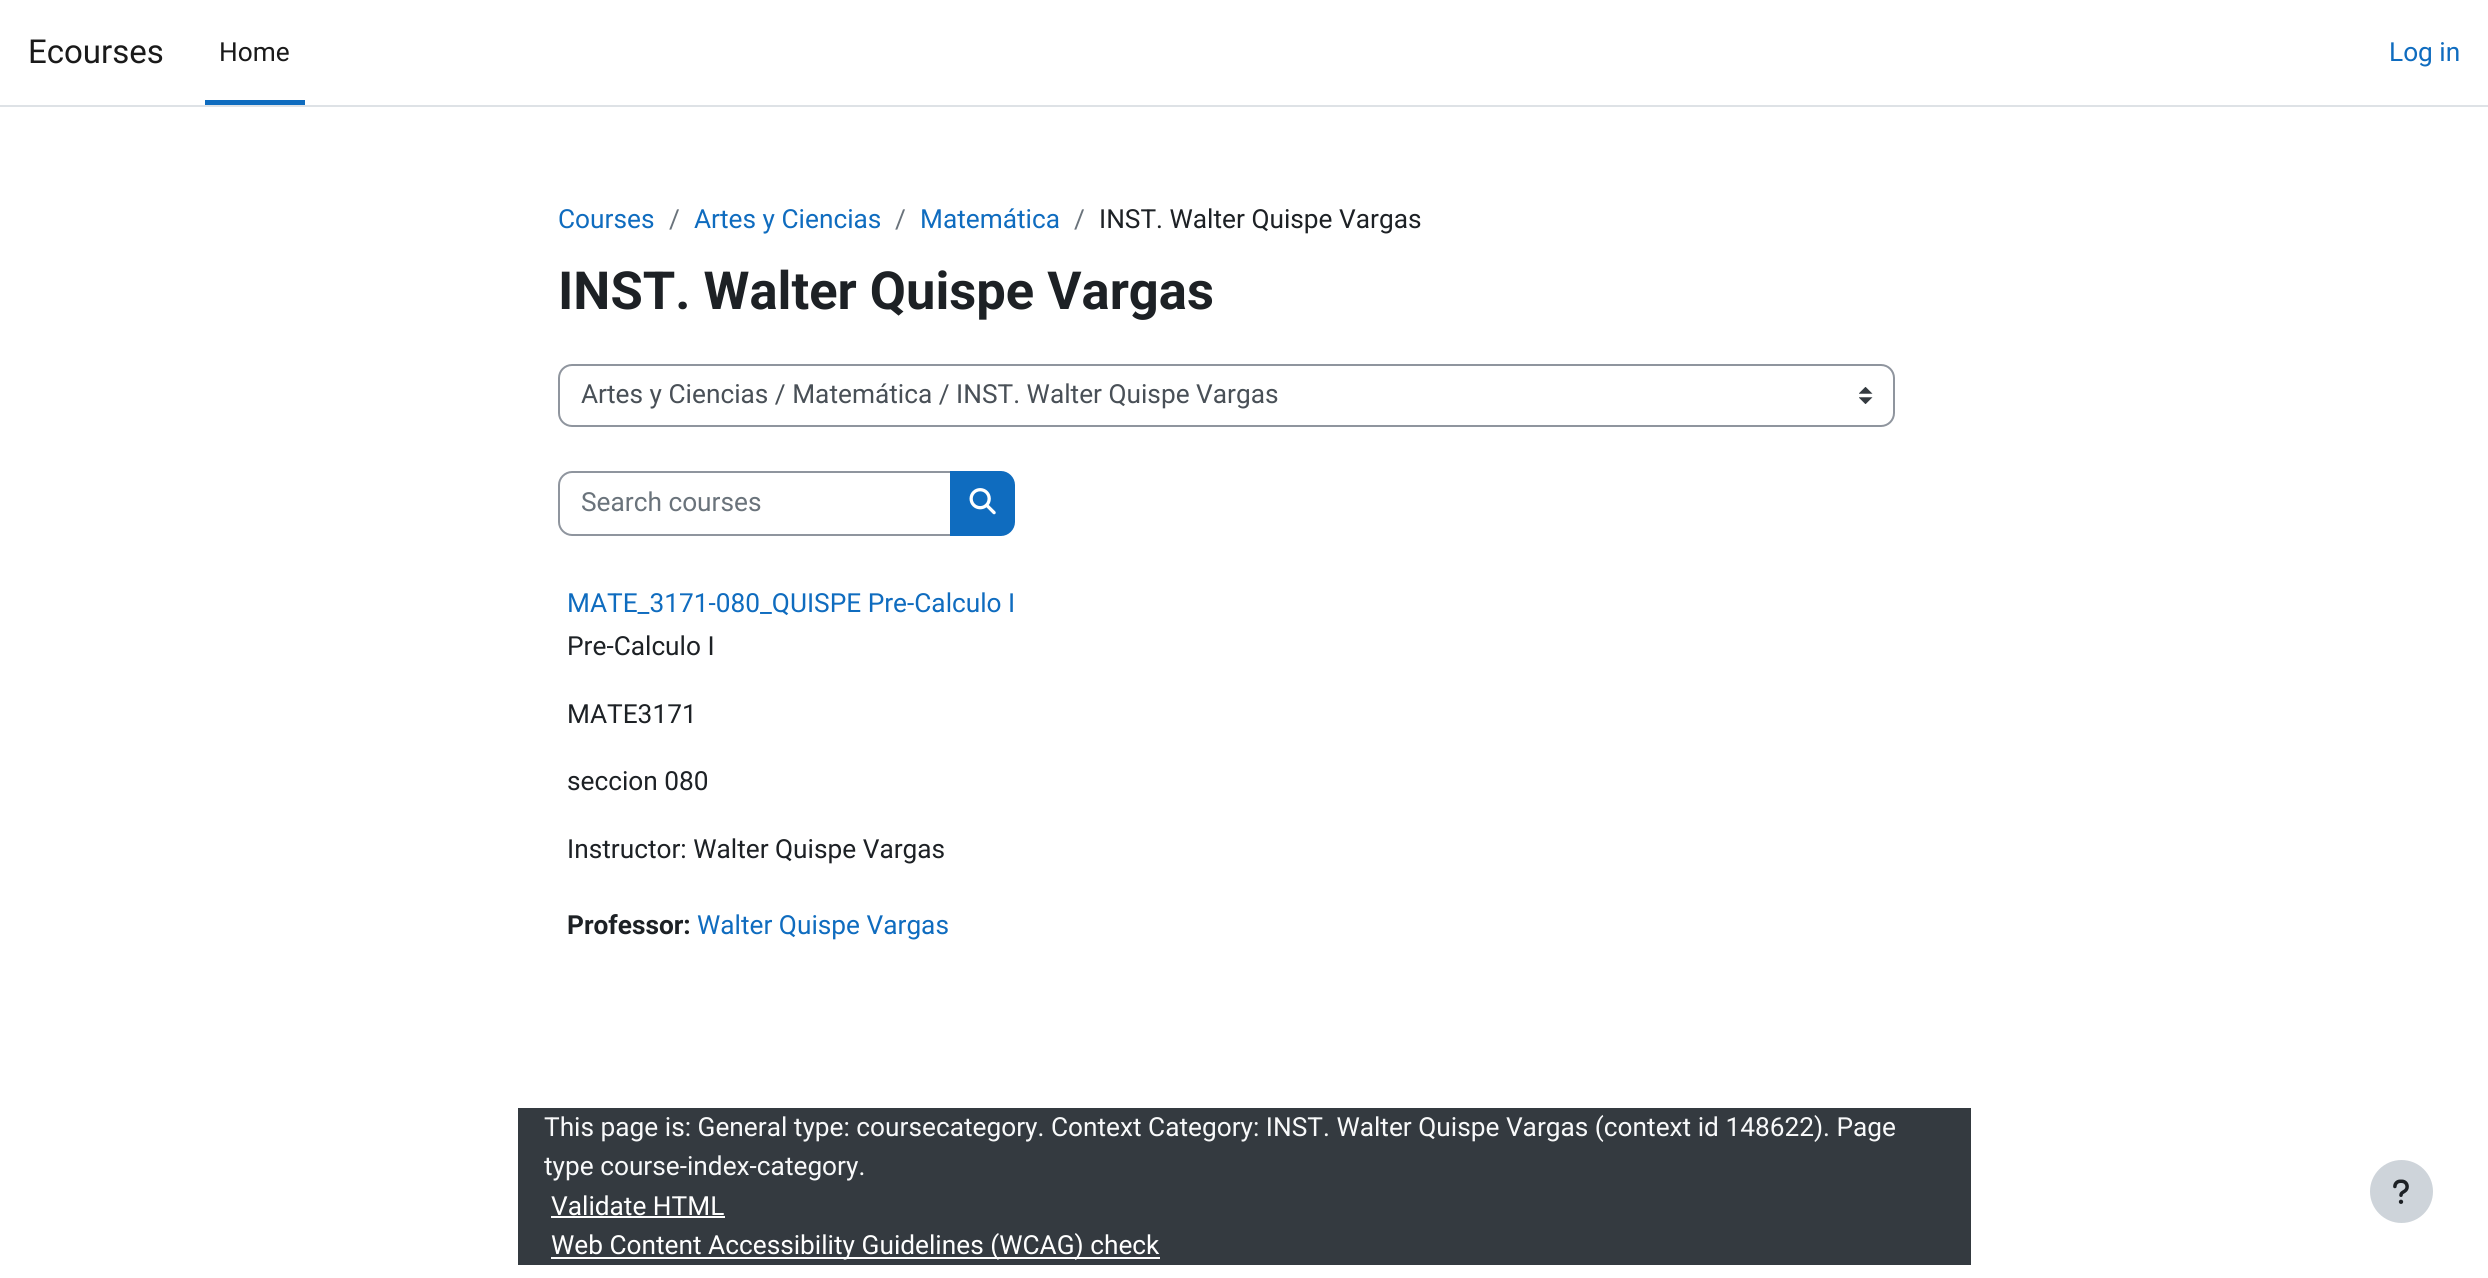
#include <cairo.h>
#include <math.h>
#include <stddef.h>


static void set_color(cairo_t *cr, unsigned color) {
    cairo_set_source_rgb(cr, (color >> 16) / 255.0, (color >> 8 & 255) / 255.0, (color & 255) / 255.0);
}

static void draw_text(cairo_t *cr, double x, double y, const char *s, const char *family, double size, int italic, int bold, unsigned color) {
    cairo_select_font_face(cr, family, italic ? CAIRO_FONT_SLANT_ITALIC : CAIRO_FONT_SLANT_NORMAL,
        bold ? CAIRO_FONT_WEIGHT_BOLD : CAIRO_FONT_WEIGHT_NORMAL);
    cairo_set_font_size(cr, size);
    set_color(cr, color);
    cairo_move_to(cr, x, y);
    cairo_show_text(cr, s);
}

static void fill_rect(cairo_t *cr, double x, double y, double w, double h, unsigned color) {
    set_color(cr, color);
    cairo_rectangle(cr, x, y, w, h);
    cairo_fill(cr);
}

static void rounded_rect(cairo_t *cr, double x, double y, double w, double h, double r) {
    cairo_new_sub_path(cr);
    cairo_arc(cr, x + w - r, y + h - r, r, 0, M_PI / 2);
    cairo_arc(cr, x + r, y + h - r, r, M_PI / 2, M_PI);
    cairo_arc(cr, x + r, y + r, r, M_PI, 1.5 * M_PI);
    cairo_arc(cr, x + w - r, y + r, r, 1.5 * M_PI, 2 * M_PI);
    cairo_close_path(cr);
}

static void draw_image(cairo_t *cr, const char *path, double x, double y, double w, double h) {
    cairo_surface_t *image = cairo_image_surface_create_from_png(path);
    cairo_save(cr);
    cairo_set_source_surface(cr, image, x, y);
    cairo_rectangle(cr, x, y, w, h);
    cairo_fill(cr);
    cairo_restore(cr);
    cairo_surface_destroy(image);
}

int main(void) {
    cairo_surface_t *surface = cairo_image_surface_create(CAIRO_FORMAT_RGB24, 2488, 1278);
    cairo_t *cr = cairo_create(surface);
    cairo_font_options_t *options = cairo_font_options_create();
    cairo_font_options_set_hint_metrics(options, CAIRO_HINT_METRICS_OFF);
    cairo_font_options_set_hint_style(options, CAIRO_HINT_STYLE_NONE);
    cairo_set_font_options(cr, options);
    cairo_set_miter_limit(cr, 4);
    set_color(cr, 0xFFFFFF);
    cairo_paint(cr);
    fill_rect(cr, 0, 105, 2488, 2, 0xDEE2E6);
    draw_text(cr, 28, 63, "Ecourses", "Roboto", 33, 0, 0, 0x1A1A1A);
    fill_rect(cr, 205, 100, 100, 5, 0x0F6CBF);
    draw_text(cr, 219, 61, "Home", "Roboto", 26.25, 0, 0, 0x1A1A1A);
    draw_text(cr, 2389, 61, "Log in", "Roboto", 26.25, 0, 0, 0x0F6CBF);
    draw_text(cr, 558, 228, "Courses", "Roboto", 26.25, 0, 0, 0x0F6CBF);
    draw_text(cr, 669, 228, "/", "Roboto", 26.25, 0, 0, 0x6A737B);
    draw_text(cr, 694, 228, "Artes y Ciencias", "Roboto", 26.25, 0, 0, 0x0F6CBF);
    draw_text(cr, 895, 228, "/", "Roboto", 26.25, 0, 0, 0x6A737B);
    draw_text(cr, 920, 228, "Matemática", "Roboto", 26.25, 0, 0, 0x0F6CBF);
    draw_text(cr, 1074, 228, "/", "Roboto", 26.25, 0, 0, 0x6A737B);
    draw_text(cr, 1099, 228, "INST. Walter Quispe Vargas", "Roboto", 26.25, 0, 0, 0x1D2125);
    draw_text(cr, 558, 309, "INST. Walter Quispe Vargas", "Roboto", 52.5, 0, 1, 0x1D2125);
    draw_image(cr, "assets/img1.png", 1859, 387, 14, 17);
    rounded_rect(cr, 559, 365, 1335, 61, 13);
    set_color(cr, 0x8F959E);
    cairo_stroke(cr);
    draw_text(cr, 581, 403, "Artes y Ciencias / Matemática / INST. Walter Quispe Vargas", "Roboto", 26.25, 0, 0, 0x495057);
    cairo_new_path(cr);
    cairo_move_to(cr, 572, 472);
    cairo_line_to(cr, 951, 472);
    cairo_line_to(cr, 951, 535);
    cairo_line_to(cr, 572, 535);
    cairo_curve_to(cr, 565, 535, 559, 529, 559, 522);
    cairo_line_to(cr, 559, 485);
    cairo_curve_to(cr, 559, 478, 565, 472, 572, 472);
    cairo_close_path(cr);
    set_color(cr, 0x8F959E);
    cairo_stroke(cr);
    draw_text(cr, 581, 511, "Search courses", "Roboto", 26.25, 0, 0, 0x6A737B);
    set_color(cr, 0x0F6CBF);
    cairo_new_path(cr);
    cairo_move_to(cr, 951, 472);
    cairo_line_to(cr, 1001, 472);
    cairo_curve_to(cr, 1008, 472, 1014, 478, 1014, 485);
    cairo_line_to(cr, 1014, 522);
    cairo_curve_to(cr, 1014, 529, 1008, 535, 1001, 535);
    cairo_line_to(cr, 951, 535);
    cairo_close_path(cr);
    cairo_fill_preserve(cr);
    cairo_stroke(cr);
    draw_image(cr, "assets/img2.png", 969, 488, 27, 27);
    draw_text(cr, 567, 612, "MATE_3171-080_QUISPE Pre-Calculo I", "Roboto", 26.25, 0, 0, 0x0F6CBF);
    draw_text(cr, 567, 655, "Pre-Calculo I", "Roboto", 26.25, 0, 0, 0x1D2125);
    draw_text(cr, 567, 723, "MATE3171", "Roboto", 26.25, 0, 0, 0x1D2125);
    draw_text(cr, 567, 790, "seccion 080", "Roboto", 26.25, 0, 0, 0x1D2125);
    draw_text(cr, 567, 858, "Instructor: Walter Quispe Vargas", "Roboto", 26.25, 0, 0, 0x1D2125);
    draw_text(cr, 567, 934, "Professor:", "Roboto", 26.25, 0, 1, 0x1D2125);
    draw_text(cr, 697, 934, "Walter Quispe Vargas", "Roboto", 26.25, 0, 0, 0x0F6CBF);
    fill_rect(cr, 518, 1108, 1453, 157, 0x343A40);
    draw_text(cr, 544, 1136, "This page is: General type: coursecategory. Context Category: INST. Walter Quispe Vargas (context id 148622). Page", "Roboto", 26.25, 0, 0, 0xF8F9FA);
    draw_text(cr, 544, 1175, "type course-index-category.", "Roboto", 26.25, 0, 0, 0xF8F9FA);
    draw_text(cr, 551, 1215, "Validate HTML", "Roboto", 26.25, 0, 0, 0xFFFFFF);
    fill_rect(cr, 551, 1216, 174, 2, 0xFFFFFF);
    fill_rect(cr, 551, 1257, 609, 2, 0xFFFFFF);
    draw_text(cr, 551, 1254, "Web Content Accessibility Guidelines (WCAG) check", "Roboto", 26.25, 0, 0, 0xFFFFFF);
    set_color(cr, 0xCED4DA);
    cairo_new_path(cr);
    cairo_arc(cr, 2401.5, 1191.5, 31.5, 0, 2 * M_PI);
    cairo_fill(cr);
    draw_image(cr, "assets/img3.png", 2393, 1179, 16, 25);
    cairo_surface_write_to_png(surface, "output.png");
    cairo_font_options_destroy(options);
    cairo_destroy(cr);
    cairo_surface_destroy(surface);
    return 0;
}
